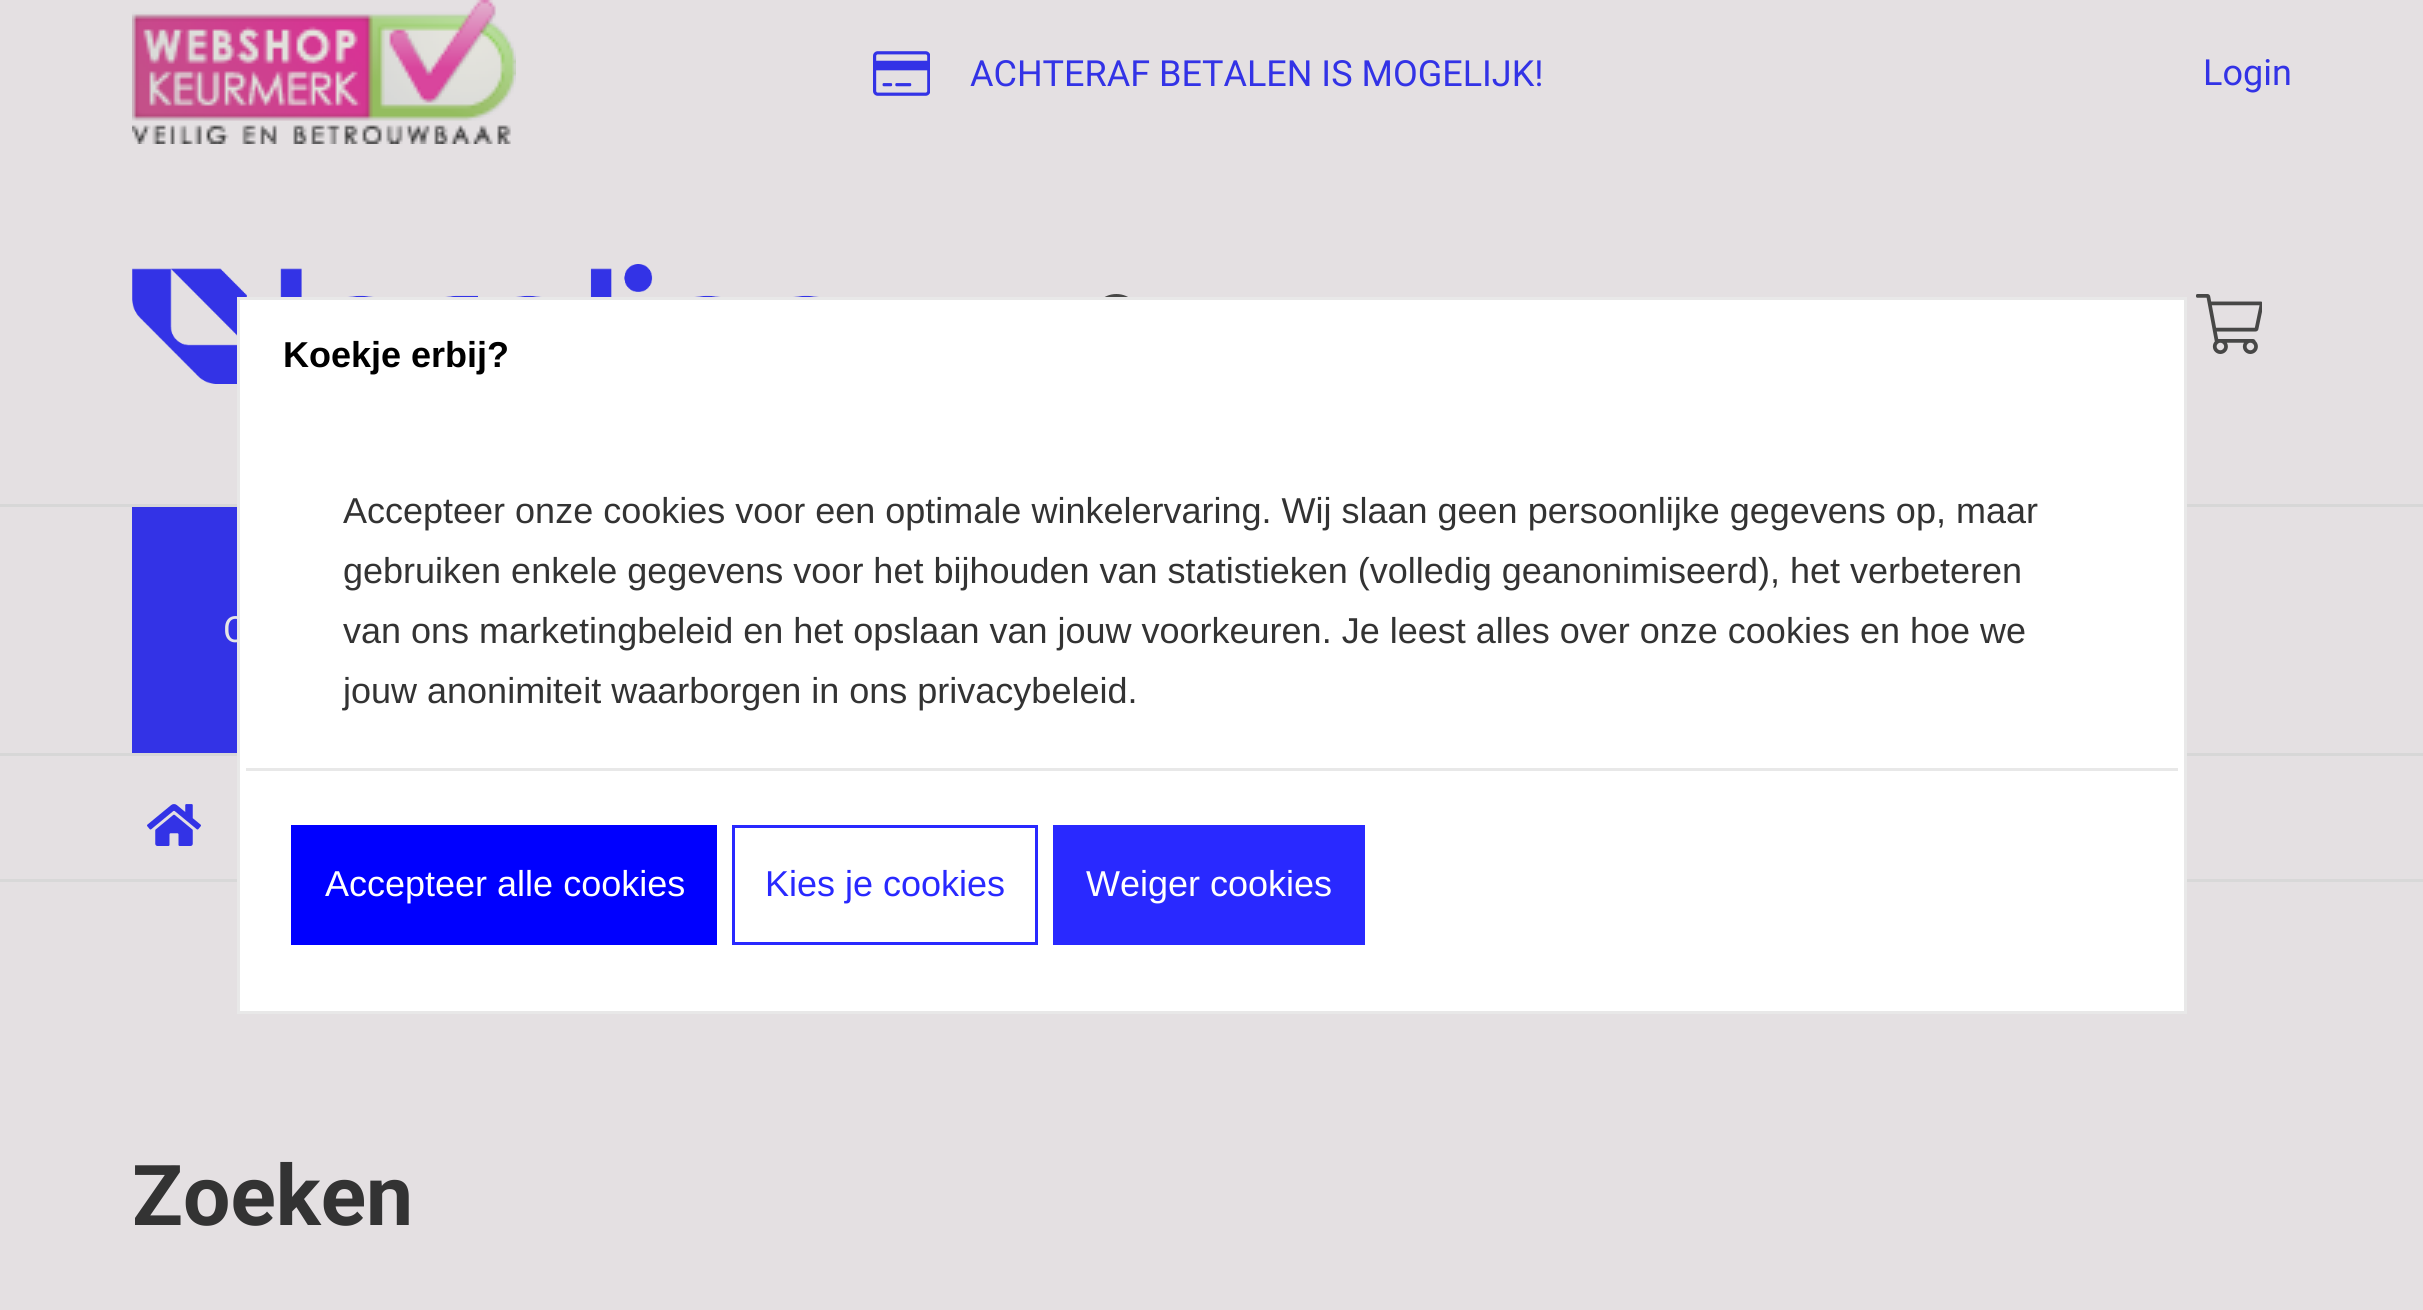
#include <cairo.h>
#include <math.h>
#include <stddef.h>


static void set_color(cairo_t *cr, unsigned color) {
    cairo_set_source_rgb(cr, (color >> 16) / 255.0, (color >> 8 & 255) / 255.0, (color & 255) / 255.0);
}

static void draw_text(cairo_t *cr, double x, double y, const char *s, const char *family, double size, int italic, int bold, unsigned color) {
    cairo_select_font_face(cr, family, italic ? CAIRO_FONT_SLANT_ITALIC : CAIRO_FONT_SLANT_NORMAL,
        bold ? CAIRO_FONT_WEIGHT_BOLD : CAIRO_FONT_WEIGHT_NORMAL);
    cairo_set_font_size(cr, size);
    set_color(cr, color);
    cairo_move_to(cr, x, y);
    cairo_show_text(cr, s);
}

static void fill_rect(cairo_t *cr, double x, double y, double w, double h, unsigned color) {
    set_color(cr, color);
    cairo_rectangle(cr, x, y, w, h);
    cairo_fill(cr);
}

static void draw_image(cairo_t *cr, const char *path, double x, double y, double w, double h) {
    cairo_surface_t *image = cairo_image_surface_create_from_png(path);
    cairo_save(cr);
    cairo_set_source_surface(cr, image, x, y);
    cairo_rectangle(cr, x, y, w, h);
    cairo_fill(cr);
    cairo_restore(cr);
    cairo_surface_destroy(image);
}

int main(void) {
    cairo_surface_t *surface = cairo_image_surface_create(CAIRO_FORMAT_RGB24, 2423, 1310);
    cairo_t *cr = cairo_create(surface);
    cairo_font_options_t *options = cairo_font_options_create();
    cairo_font_options_set_hint_metrics(options, CAIRO_HINT_METRICS_OFF);
    cairo_font_options_set_hint_style(options, CAIRO_HINT_STYLE_NONE);
    cairo_set_font_options(cr, options);
    cairo_set_miter_limit(cr, 4);
    set_color(cr, 0xE4E0E2);
    cairo_paint(cr);
    draw_image(cr, "assets/img1.png", 132, 0, 384, 144);
    draw_image(cr, "assets/img2.png", 873, 51, 57, 45);
    draw_text(cr, 970, 86, "ACHTERAF BETALEN IS MOGELIJK!", "Roboto", 36, 0, 0, 0x3333E6);
    draw_text(cr, 2203, 85, "Login", "Roboto", 36, 0, 0, 0x3333E6);
    draw_image(cr, "assets/img3.png", 132, 264, 687, 120);
    draw_image(cr, "assets/img4.png", 1104, 294, 24, 3);
    draw_image(cr, "assets/img5.png", 2196, 294, 66, 60);
    fill_rect(cr, 0, 504, 2423, 3, 0xD7D7D7);
    fill_rect(cr, 0, 753, 2423, 3, 0xD7D7D7);
    fill_rect(cr, 132, 507, 105, 246, 0x3333E6);
    draw_text(cr, 223, 642, "C", "Roboto", 36, 0, 0, 0xE6E6E6);
    fill_rect(cr, 0, 879, 2423, 3, 0xD8D8D8);
    draw_image(cr, "assets/img6.png", 147, 804, 54, 42);
    set_color(cr, 0xFFFFFF);
    cairo_rectangle(cr, 238.5, 298.5, 1947, 714);
    cairo_fill_preserve(cr);
    set_color(cr, 0xE8E8E8);
    cairo_set_line_width(cr, 3);
    cairo_stroke(cr);
    draw_text(cr, 283, 367, "Koekje erbij?", "Liberation Sans", 36, 0, 1, 0x000000);
    draw_text(cr, 343, 523, "Accepteer onze cookies voor een optimale winkelervaring. Wij slaan geen persoonlijke gegevens op, maar", "Liberation Sans", 36, 0, 0, 0x333333);
    draw_text(cr, 343, 583, "gebruiken enkele gegevens voor het bijhouden van statistieken (volledig geanonimiseerd), het verbeteren", "Liberation Sans", 36, 0, 0, 0x333333);
    draw_text(cr, 343, 643, "van ons marketingbeleid en het opslaan van jouw voorkeuren. Je leest alles over onze cookies en hoe we", "Liberation Sans", 36, 0, 0, 0x333333);
    draw_text(cr, 343, 703, "jouw anonimiteit waarborgen in ons privacybeleid.", "Liberation Sans", 36, 0, 0, 0x333333);
    fill_rect(cr, 246, 768, 1932, 3, 0xE8E8E8);
    fill_rect(cr, 291, 825, 426, 120, 0x0000FF);
    draw_text(cr, 325, 896, "Accepteer alle cookies", "Liberation Sans", 36, 0, 0, 0xFFFFFF);
    cairo_rectangle(cr, 733.5, 826.5, 303, 117);
    set_color(cr, 0x2929FF);
    cairo_stroke(cr);
    draw_text(cr, 765, 896, "Kies je cookies", "Liberation Sans", 36, 0, 0, 0x2929FF);
    fill_rect(cr, 1053, 825, 312, 120, 0x2929FF);
    draw_text(cr, 1086, 896, "Weiger cookies", "Liberation Sans", 36, 0, 0, 0xFFFFFF);
    draw_text(cr, 132, 1225, "Zoeken", "Roboto", 84, 0, 1, 0x333333);
    cairo_surface_write_to_png(surface, "output.png");
    cairo_font_options_destroy(options);
    cairo_destroy(cr);
    cairo_surface_destroy(surface);
    return 0;
}
